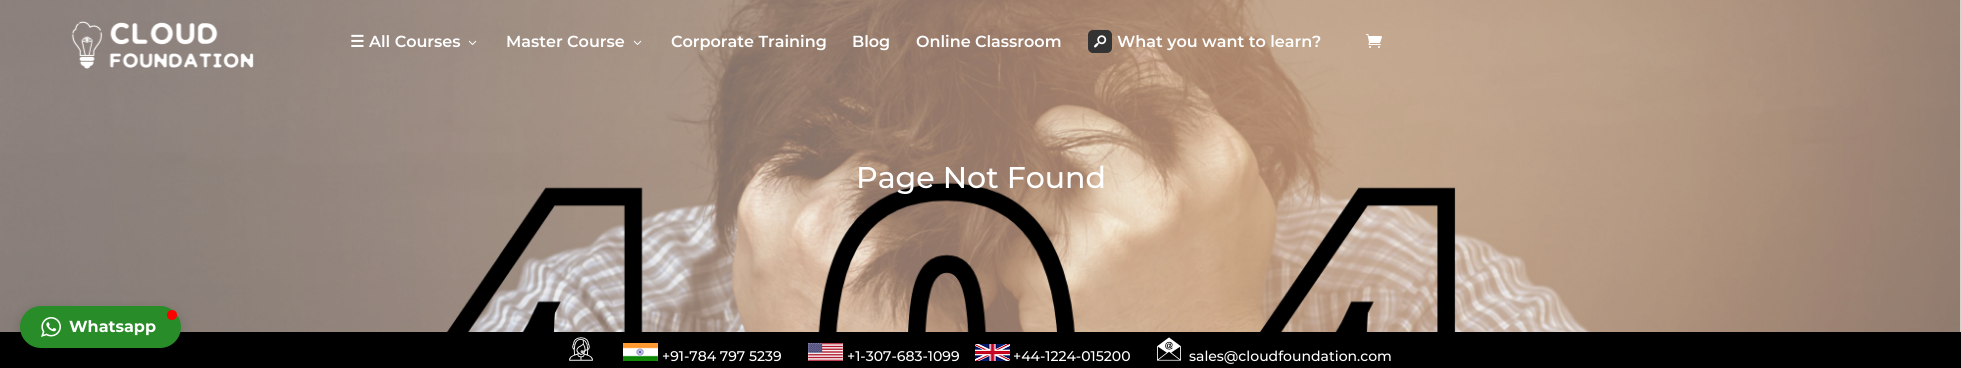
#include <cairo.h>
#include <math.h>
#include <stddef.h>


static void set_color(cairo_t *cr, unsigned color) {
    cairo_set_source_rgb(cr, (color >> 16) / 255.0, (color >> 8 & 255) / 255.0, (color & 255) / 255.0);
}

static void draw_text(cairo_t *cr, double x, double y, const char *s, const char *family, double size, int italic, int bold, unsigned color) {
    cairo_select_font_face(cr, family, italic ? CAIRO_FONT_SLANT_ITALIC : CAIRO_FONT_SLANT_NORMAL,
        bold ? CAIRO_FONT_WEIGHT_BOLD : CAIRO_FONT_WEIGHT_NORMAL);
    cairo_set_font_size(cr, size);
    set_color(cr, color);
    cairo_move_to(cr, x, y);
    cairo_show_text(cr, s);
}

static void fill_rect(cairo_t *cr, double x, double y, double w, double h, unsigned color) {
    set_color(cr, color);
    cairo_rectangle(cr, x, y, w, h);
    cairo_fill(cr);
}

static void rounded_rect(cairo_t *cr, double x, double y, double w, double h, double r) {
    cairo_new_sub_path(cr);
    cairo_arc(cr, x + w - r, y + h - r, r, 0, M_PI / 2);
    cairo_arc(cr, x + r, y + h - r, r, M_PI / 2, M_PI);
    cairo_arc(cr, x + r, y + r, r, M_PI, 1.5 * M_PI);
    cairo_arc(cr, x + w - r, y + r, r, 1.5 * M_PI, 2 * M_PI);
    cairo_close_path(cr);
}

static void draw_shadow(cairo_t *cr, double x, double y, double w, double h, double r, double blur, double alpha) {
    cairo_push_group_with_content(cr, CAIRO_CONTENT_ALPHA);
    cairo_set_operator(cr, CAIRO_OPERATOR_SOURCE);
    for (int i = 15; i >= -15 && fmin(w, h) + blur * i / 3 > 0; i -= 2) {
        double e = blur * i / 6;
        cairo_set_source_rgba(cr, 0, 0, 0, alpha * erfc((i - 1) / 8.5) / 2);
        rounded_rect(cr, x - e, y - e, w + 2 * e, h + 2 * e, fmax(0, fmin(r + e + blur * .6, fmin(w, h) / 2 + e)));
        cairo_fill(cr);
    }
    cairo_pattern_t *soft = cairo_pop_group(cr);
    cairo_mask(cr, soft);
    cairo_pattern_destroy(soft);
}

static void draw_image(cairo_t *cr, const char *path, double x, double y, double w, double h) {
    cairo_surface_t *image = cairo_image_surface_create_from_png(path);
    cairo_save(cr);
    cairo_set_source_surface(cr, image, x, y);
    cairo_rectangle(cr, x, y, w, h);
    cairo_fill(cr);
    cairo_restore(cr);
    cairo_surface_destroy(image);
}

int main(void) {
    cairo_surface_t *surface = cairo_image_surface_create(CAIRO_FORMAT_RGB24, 1961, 368);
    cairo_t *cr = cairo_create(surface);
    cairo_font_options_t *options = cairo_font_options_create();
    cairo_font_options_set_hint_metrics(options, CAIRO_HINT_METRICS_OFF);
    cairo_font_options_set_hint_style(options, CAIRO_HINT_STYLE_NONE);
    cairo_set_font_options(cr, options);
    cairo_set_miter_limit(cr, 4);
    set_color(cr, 0xFFFFFF);
    cairo_paint(cr);
    draw_image(cr, "assets/img6.png", 0, 0, 1961, 332);
    draw_image(cr, "assets/img1.png", 71, 21, 183, 48);
    draw_text(cr, 350, 47, "☰", "DejaVu Sans", 16, 0, 1, 0xFFFFFF);
    draw_text(cr, 369, 47, "All Courses", "Montserrat SemiBold", 16, 0, 0, 0xFFFFFF);
    draw_image(cr, "assets/img2.png", 468, 40, 9, 5);
    draw_text(cr, 506, 47, "Master Course", "Montserrat SemiBold", 16, 0, 0, 0xFFFFFF);
    draw_image(cr, "assets/img3.png", 633, 40, 9, 5);
    draw_text(cr, 671, 47, "Corporate Training", "Montserrat SemiBold", 16, 0, 0, 0xFFFFFF);
    draw_text(cr, 852, 47, "Blog", "Montserrat SemiBold", 16, 0, 0, 0xFFFFFF);
    draw_text(cr, 916, 47, "Online Classroom", "Montserrat SemiBold", 16, 0, 0, 0xFFFFFF);
    set_color(cr, 0x333333);
    rounded_rect(cr, 1088, 30, 24, 23, 5);
    cairo_fill(cr);
    draw_image(cr, "assets/img4.png", 1094, 35, 13, 13);
    draw_text(cr, 1117, 47, "What you want to learn?", "Montserrat SemiBold", 16, 0, 0, 0xFFFFFF);
    draw_image(cr, "assets/img5.png", 1366, 34, 16, 14);
    draw_text(cr, 856, 188, "Page Not Found", "Montserrat Medium", 30, 0, 0, 0xFFFFFF);
    fill_rect(cr, 0, 332, 1961, 36, 0x000000);
    set_color(cr, 0x000000);
    draw_shadow(cr, 20, 309, 161, 42, 21, 6, 0.15);
    set_color(cr, 0x288D28);
    rounded_rect(cr, 20, 306, 161, 42, 21);
    cairo_fill(cr);
    draw_image(cr, "assets/img7.png", 41, 317, 20, 20);
    set_color(cr, 0xFF0000);
    cairo_arc(cr, 172, 315, 5, 0, 2 * M_PI);
    cairo_fill(cr);
    draw_text(cr, 69, 332, "Whatsapp", "Montserrat", 16, 0, 1, 0xFFFFFF);
    draw_image(cr, "assets/img8.png", 569, 337, 24, 24);
    draw_image(cr, "assets/img9.png", 623, 343, 35, 18);
    draw_text(cr, 662, 361, "+91-784 797 5239", "Montserrat Medium", 14, 0, 0, 0xFFFFFF);
    draw_image(cr, "assets/img10.png", 808, 343, 35, 18);
    draw_text(cr, 847, 361, "+1-307-683-1099", "Montserrat Medium", 14, 0, 0, 0xFFFFFF);
    draw_image(cr, "assets/img11.png", 975, 344, 35, 17);
    draw_text(cr, 1013, 361, "+44-1224-015200", "Montserrat Medium", 14, 0, 0, 0xFFFFFF);
    draw_image(cr, "assets/img12.png", 1157, 337, 24, 24);
    draw_text(cr, 1189, 361, "sales@cloudfoundation.com", "Montserrat Medium", 14, 0, 0, 0xFFFFFF);
    cairo_surface_write_to_png(surface, "output.png");
    cairo_font_options_destroy(options);
    cairo_destroy(cr);
    cairo_surface_destroy(surface);
    return 0;
}
